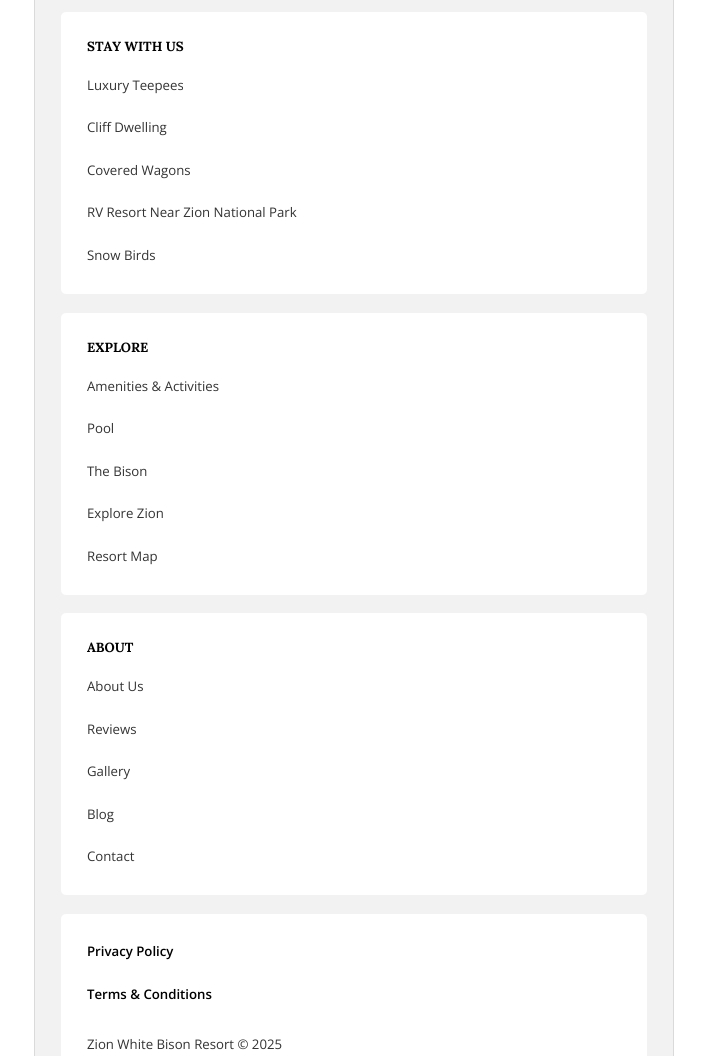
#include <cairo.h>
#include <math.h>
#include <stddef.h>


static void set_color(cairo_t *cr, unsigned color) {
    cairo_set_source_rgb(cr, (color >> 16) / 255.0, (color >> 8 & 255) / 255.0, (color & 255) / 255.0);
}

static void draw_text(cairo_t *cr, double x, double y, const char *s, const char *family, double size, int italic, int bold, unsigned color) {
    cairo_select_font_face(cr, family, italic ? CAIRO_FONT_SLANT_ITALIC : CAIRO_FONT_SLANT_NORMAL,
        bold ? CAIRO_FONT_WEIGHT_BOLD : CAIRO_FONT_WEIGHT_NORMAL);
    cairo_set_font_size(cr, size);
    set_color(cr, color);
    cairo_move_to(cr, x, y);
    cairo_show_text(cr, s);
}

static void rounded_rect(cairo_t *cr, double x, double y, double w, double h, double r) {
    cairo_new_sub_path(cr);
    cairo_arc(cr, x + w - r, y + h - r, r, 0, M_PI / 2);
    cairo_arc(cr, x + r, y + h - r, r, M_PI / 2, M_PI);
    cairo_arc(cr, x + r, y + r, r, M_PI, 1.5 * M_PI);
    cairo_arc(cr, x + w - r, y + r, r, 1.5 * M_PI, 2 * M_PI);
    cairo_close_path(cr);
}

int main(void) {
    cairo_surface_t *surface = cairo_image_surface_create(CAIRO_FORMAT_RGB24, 708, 1056);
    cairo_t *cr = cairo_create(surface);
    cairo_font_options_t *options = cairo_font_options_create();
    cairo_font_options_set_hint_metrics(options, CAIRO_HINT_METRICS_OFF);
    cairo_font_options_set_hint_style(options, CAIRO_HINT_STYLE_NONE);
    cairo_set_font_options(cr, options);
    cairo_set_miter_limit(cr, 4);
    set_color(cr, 0xFFFFFF);
    cairo_paint(cr);
    set_color(cr, 0xF2F2F2);
    cairo_rectangle(cr, 34.5, -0.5, 639, 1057);
    cairo_fill_preserve(cr);
    set_color(cr, 0xDADADA);
    cairo_set_line_width(cr, 1);
    cairo_stroke(cr);
    set_color(cr, 0xFFFFFF);
    rounded_rect(cr, 61, 12, 586, 282, 5);
    cairo_fill(cr);
    draw_text(cr, 87, 51, "STAY WITH US", "Lora", 13.2, 0, 1, 0x000000);
    draw_text(cr, 87, 90, "Luxury Teepees", "Open Sans", 13.2, 0, 0, 0x333333);
    draw_text(cr, 87, 132, "Cliff Dwelling", "Open Sans", 13.2, 0, 0, 0x333333);
    draw_text(cr, 87, 175, "Covered Wagons", "Open Sans", 13.2, 0, 0, 0x333333);
    draw_text(cr, 87, 217, "RV Resort Near Zion National Park", "Open Sans", 13.2, 0, 0, 0x333333);
    draw_text(cr, 87, 260, "Snow Birds", "Open Sans", 13.2, 0, 0, 0x333333);
    set_color(cr, 0xFFFFFF);
    rounded_rect(cr, 61, 313, 586, 282, 5);
    cairo_fill(cr);
    draw_text(cr, 87, 352, "EXPLORE", "Lora", 13.2, 0, 1, 0x000000);
    draw_text(cr, 87, 391, "Amenities & Activities", "Open Sans", 13.2, 0, 0, 0x333333);
    draw_text(cr, 87, 433, "Pool", "Open Sans", 13.2, 0, 0, 0x333333);
    draw_text(cr, 87, 476, "The Bison", "Open Sans", 13.2, 0, 0, 0x333333);
    draw_text(cr, 87, 518, "Explore Zion", "Open Sans", 13.2, 0, 0, 0x333333);
    draw_text(cr, 87, 561, "Resort Map", "Open Sans", 13.2, 0, 0, 0x333333);
    set_color(cr, 0xFFFFFF);
    rounded_rect(cr, 61, 613, 586, 282, 5);
    cairo_fill(cr);
    draw_text(cr, 87, 652, "ABOUT", "Lora", 13.2, 0, 1, 0x000000);
    draw_text(cr, 87, 691, "About Us", "Open Sans", 13.2, 0, 0, 0x333333);
    draw_text(cr, 87, 734, "Reviews", "Open Sans", 13.2, 0, 0, 0x333333);
    draw_text(cr, 87, 776, "Gallery", "Open Sans", 13.2, 0, 0, 0x333333);
    draw_text(cr, 87, 819, "Blog", "Open Sans", 13.2, 0, 0, 0x333333);
    draw_text(cr, 87, 861, "Contact", "Open Sans", 13.2, 0, 0, 0x333333);
    set_color(cr, 0xFFFFFF);
    rounded_rect(cr, 61, 914, 586, 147, 5);
    cairo_fill(cr);
    draw_text(cr, 87, 956, "Privacy Policy", "Open Sans SemiBold", 13.2, 0, 0, 0x000000);
    draw_text(cr, 87, 999, "Terms & Conditions", "Open Sans SemiBold", 13.2, 0, 0, 0x000000);
    draw_text(cr, 87, 1049, "Zion White Bison Resort © 2025", "Open Sans", 13.2, 0, 0, 0x333333);
    cairo_surface_write_to_png(surface, "output.png");
    cairo_font_options_destroy(options);
    cairo_destroy(cr);
    cairo_surface_destroy(surface);
    return 0;
}
